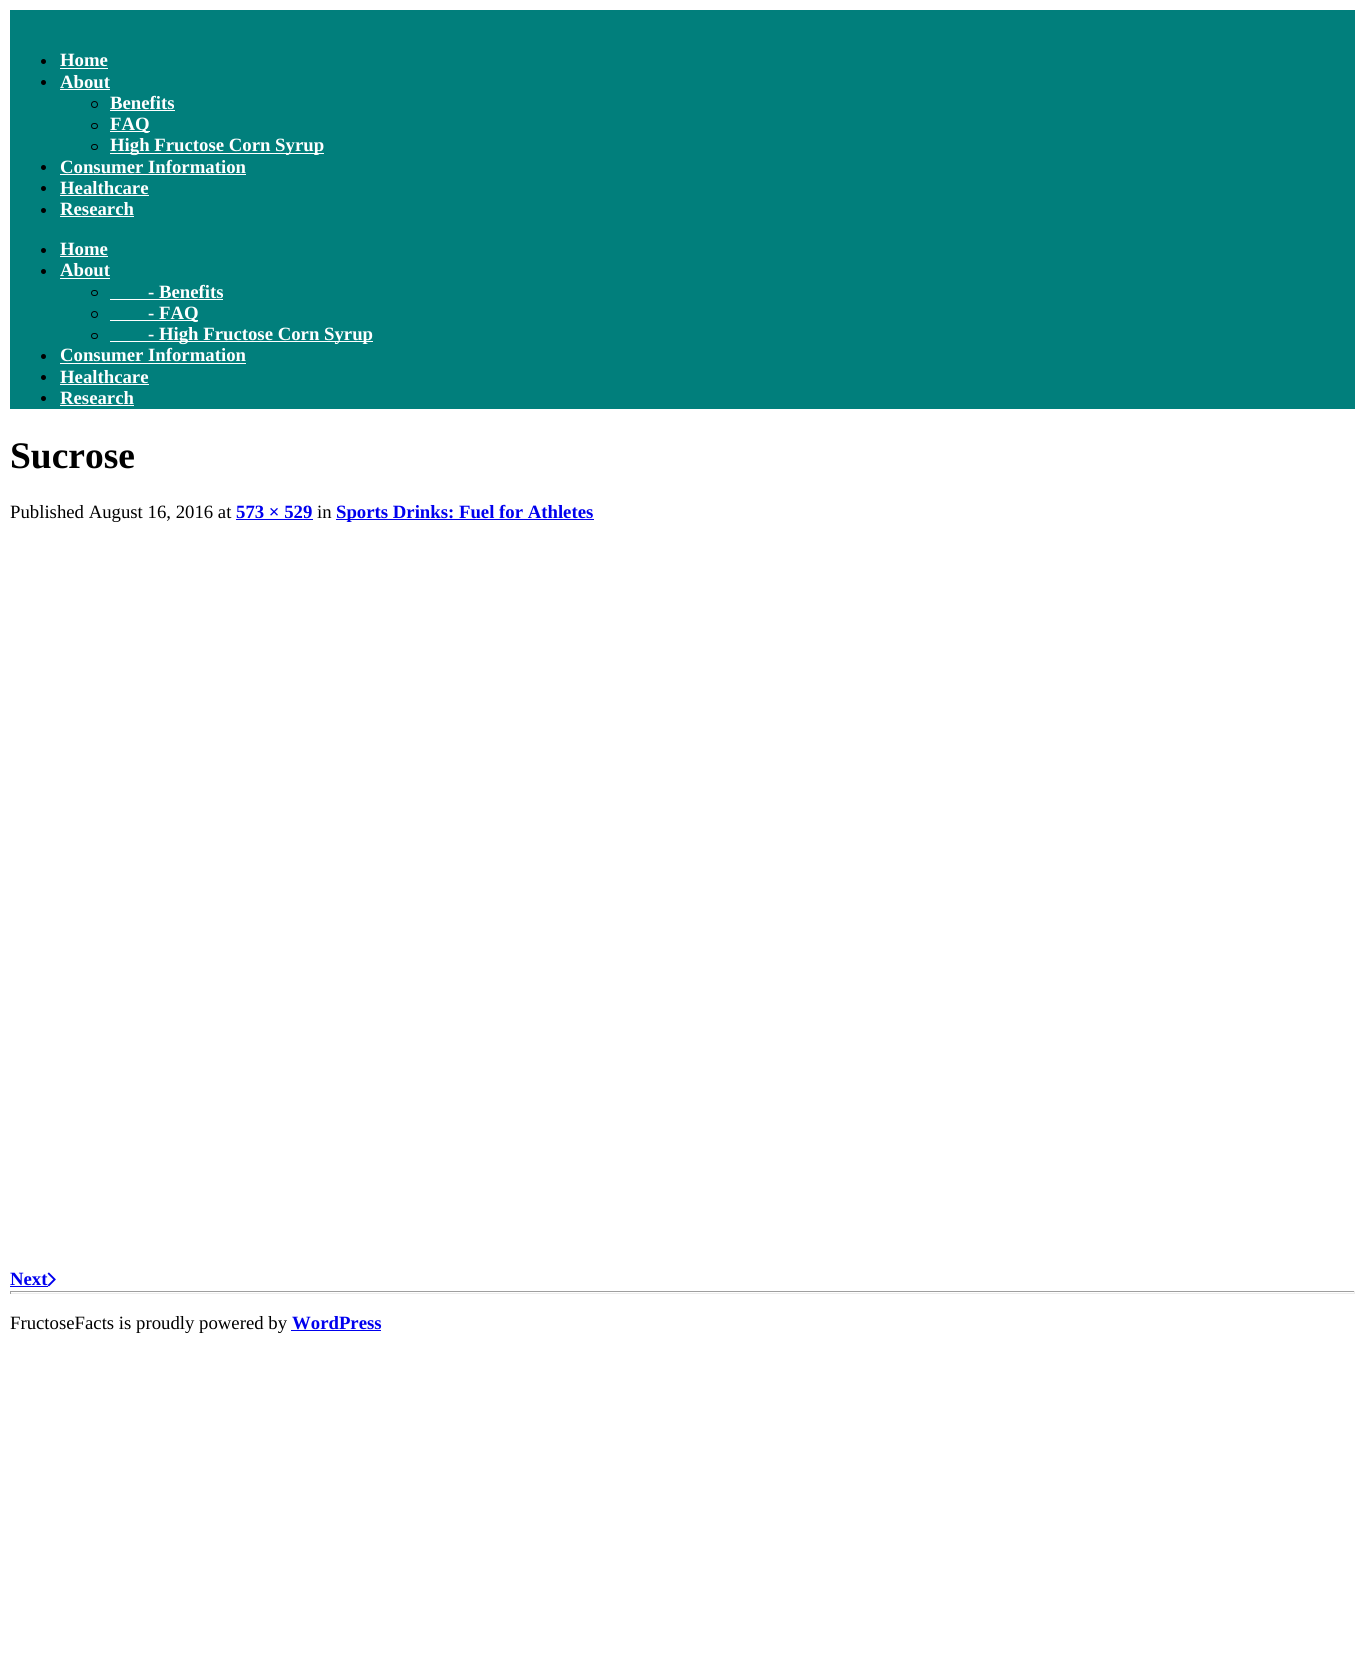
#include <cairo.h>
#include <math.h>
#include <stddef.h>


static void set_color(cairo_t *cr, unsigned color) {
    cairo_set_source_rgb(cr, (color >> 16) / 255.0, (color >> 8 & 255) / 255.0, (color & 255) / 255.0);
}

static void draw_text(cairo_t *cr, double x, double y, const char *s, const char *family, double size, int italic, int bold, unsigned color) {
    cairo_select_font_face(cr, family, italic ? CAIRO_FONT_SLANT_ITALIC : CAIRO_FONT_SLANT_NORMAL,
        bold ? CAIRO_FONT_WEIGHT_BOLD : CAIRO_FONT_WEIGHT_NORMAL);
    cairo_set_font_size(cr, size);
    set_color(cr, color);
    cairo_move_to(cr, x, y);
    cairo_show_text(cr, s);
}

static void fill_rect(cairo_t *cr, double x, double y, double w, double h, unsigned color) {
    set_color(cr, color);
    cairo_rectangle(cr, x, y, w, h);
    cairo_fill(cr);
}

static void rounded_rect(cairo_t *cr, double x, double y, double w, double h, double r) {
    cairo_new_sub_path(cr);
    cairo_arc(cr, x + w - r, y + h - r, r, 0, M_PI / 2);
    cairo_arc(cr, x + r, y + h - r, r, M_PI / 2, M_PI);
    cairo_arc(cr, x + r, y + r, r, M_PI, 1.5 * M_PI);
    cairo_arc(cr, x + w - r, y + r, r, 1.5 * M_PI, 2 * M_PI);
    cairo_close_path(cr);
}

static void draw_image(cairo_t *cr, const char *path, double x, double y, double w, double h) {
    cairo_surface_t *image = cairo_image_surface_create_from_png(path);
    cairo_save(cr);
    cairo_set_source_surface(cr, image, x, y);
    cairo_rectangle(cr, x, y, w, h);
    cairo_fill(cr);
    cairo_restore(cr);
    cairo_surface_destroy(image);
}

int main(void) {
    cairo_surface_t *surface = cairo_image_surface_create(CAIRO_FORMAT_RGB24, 1365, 1659);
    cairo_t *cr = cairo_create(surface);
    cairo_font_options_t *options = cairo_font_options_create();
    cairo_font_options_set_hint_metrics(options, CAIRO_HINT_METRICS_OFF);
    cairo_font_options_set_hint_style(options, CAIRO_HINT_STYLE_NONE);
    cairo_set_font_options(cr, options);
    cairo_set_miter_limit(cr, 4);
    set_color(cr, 0xFFFFFF);
    cairo_paint(cr);
    fill_rect(cr, 10, 10, 1345, 399, 0x017F7C);
    set_color(cr, 0x000000);
    cairo_arc(cr, 43.5, 61.5, 2.5, 0, 2 * M_PI);
    cairo_fill(cr);
    draw_text(cr, 60, 66, "Home", "Liberation Serif", 18.75, 0, 1, 0xFFFFFF);
    fill_rect(cr, 60, 68, 48, 1, 0xFFFFFF);
    set_color(cr, 0x000000);
    cairo_new_path(cr);
    cairo_arc(cr, 43.5, 82.5, 2.5, 0, 2 * M_PI);
    cairo_fill(cr);
    draw_text(cr, 60, 88, "About", "Liberation Serif", 18.75, 0, 1, 0xFFFFFF);
    fill_rect(cr, 60, 89, 50, 1, 0xFFFFFF);
    cairo_new_path(cr);
    cairo_arc(cr, 94.5, 104.5, 3, 0, 2 * M_PI);
    set_color(cr, 0x000000);
    cairo_set_line_width(cr, 1);
    cairo_stroke(cr);
    draw_text(cr, 110, 109, "Benefits", "Liberation Serif", 18.75, 0, 1, 0xFFFFFF);
    fill_rect(cr, 110, 110, 65, 1, 0xFFFFFF);
    rounded_rect(cr, 91.5, 123.5, 6, 5, 2.5);
    set_color(cr, 0x000000);
    cairo_stroke(cr);
    fill_rect(cr, 110, 131, 40, 1, 0xFFFFFF);
    draw_text(cr, 110, 130, "FAQ", "Liberation Serif", 18.75, 0, 1, 0xFFFFFF);
    rounded_rect(cr, 91.5, 144.5, 6, 5, 2.5);
    set_color(cr, 0x000000);
    cairo_stroke(cr);
    fill_rect(cr, 110, 153, 214, 1, 0xFFFFFF);
    draw_text(cr, 110, 151, "High Fructose Corn Syrup", "Liberation Serif", 18.75, 0, 1, 0xFFFFFF);
    set_color(cr, 0x000000);
    cairo_new_path(cr);
    cairo_arc(cr, 43.5, 167.5, 2.5, 0, 2 * M_PI);
    cairo_fill(cr);
    draw_text(cr, 60, 173, "Consumer Information", "Liberation Serif", 18.75, 0, 1, 0xFFFFFF);
    fill_rect(cr, 60, 174, 186, 1, 0xFFFFFF);
    set_color(cr, 0x000000);
    cairo_new_path(cr);
    cairo_arc(cr, 43.5, 188.5, 2.5, 0, 2 * M_PI);
    cairo_fill(cr);
    draw_text(cr, 60, 194, "Healthcare", "Liberation Serif", 18.75, 0, 1, 0xFFFFFF);
    fill_rect(cr, 60, 195, 89, 1, 0xFFFFFF);
    set_color(cr, 0x000000);
    cairo_new_path(cr);
    cairo_arc(cr, 43.5, 210.5, 2.5, 0, 2 * M_PI);
    cairo_fill(cr);
    draw_text(cr, 60, 215, "Research", "Liberation Serif", 18.75, 0, 1, 0xFFFFFF);
    fill_rect(cr, 60, 216, 74, 1, 0xFFFFFF);
    set_color(cr, 0x000000);
    cairo_new_path(cr);
    cairo_arc(cr, 43.5, 250.5, 2.5, 0, 2 * M_PI);
    cairo_fill(cr);
    draw_text(cr, 60, 255, "Home", "Liberation Serif", 18.75, 0, 1, 0xFFFFFF);
    fill_rect(cr, 60, 256, 48, 1, 0xFFFFFF);
    set_color(cr, 0x000000);
    cairo_new_path(cr);
    cairo_arc(cr, 43.5, 271.5, 2.5, 0, 2 * M_PI);
    cairo_fill(cr);
    draw_text(cr, 60, 276, "About", "Liberation Serif", 18.75, 0, 1, 0xFFFFFF);
    fill_rect(cr, 60, 278, 50, 1, 0xFFFFFF);
    rounded_rect(cr, 91.5, 290.5, 6, 5, 2.5);
    set_color(cr, 0x000000);
    cairo_stroke(cr);
    draw_text(cr, 148, 298, "- Benefits", "Liberation Serif", 18.75, 0, 1, 0xFFFFFF);
    fill_rect(cr, 110, 299, 113, 1, 0xFFFFFF);
    cairo_new_path(cr);
    cairo_arc(cr, 94.5, 314.5, 3, 0, 2 * M_PI);
    set_color(cr, 0x000000);
    cairo_stroke(cr);
    fill_rect(cr, 110, 320, 88, 1, 0xFFFFFF);
    draw_text(cr, 148, 319, "- FAQ", "Liberation Serif", 18.75, 0, 1, 0xFFFFFF);
    rounded_rect(cr, 91.5, 333.5, 6, 5, 2.5);
    set_color(cr, 0x000000);
    cairo_stroke(cr);
    fill_rect(cr, 110, 341, 263, 1, 0xFFFFFF);
    draw_text(cr, 148, 340, "- High Fructose Corn Syrup", "Liberation Serif", 18.75, 0, 1, 0xFFFFFF);
    set_color(cr, 0x000000);
    cairo_new_path(cr);
    cairo_arc(cr, 43.5, 356.5, 2.5, 0, 2 * M_PI);
    cairo_fill(cr);
    draw_text(cr, 60, 361, "Consumer Information", "Liberation Serif", 18.75, 0, 1, 0xFFFFFF);
    fill_rect(cr, 60, 363, 186, 1, 0xFFFFFF);
    set_color(cr, 0x000000);
    cairo_new_path(cr);
    cairo_arc(cr, 43.5, 377.5, 2.5, 0, 2 * M_PI);
    cairo_fill(cr);
    draw_text(cr, 60, 383, "Healthcare", "Liberation Serif", 18.75, 0, 1, 0xFFFFFF);
    fill_rect(cr, 60, 384, 89, 1, 0xFFFFFF);
    set_color(cr, 0x000000);
    cairo_new_path(cr);
    cairo_arc(cr, 43.5, 398.5, 2.5, 0, 2 * M_PI);
    cairo_fill(cr);
    draw_text(cr, 60, 404, "Research", "Liberation Serif", 18.75, 0, 1, 0xFFFFFF);
    fill_rect(cr, 60, 405, 74, 1, 0xFFFFFF);
    draw_text(cr, 10, 468, "Sucrose", "Liberation Serif", 37.5, 0, 1, 0x000000);
    draw_text(cr, 10, 518, "Published August 16, 2016 at", "Liberation Serif", 18.75, 0, 0, 0x000000);
    draw_text(cr, 236, 518, "573 × 529", "Liberation Serif", 18.75, 0, 1, 0x0000EE);
    fill_rect(cr, 236, 519, 77, 1, 0x0000EE);
    draw_text(cr, 317, 518, "in", "Liberation Serif", 18.75, 0, 0, 0x000000);
    fill_rect(cr, 336, 519, 258, 1, 0x0000EE);
    draw_text(cr, 336, 518, "Sports Drinks: Fuel for Athletes", "Liberation Serif", 18.75, 0, 1, 0x0000EE);
    draw_text(cr, 10, 1285, "Next", "Liberation Serif", 18.75, 0, 1, 0x0000EE);
    fill_rect(cr, 10, 1286, 38, 1, 0x0000EE);
    draw_image(cr, "assets/img1.png", 47, 1272, 9, 15);
    fill_rect(cr, 10, 1291, 1345, 1, 0x9F9F9F);
    fill_rect(cr, 1354, 1291, 1, 3, 0xEEEEEE);
    fill_rect(cr, 10, 1293, 1345, 1, 0xEEEEEE);
    fill_rect(cr, 10, 1291, 1, 3, 0x9F9F9F);
    draw_text(cr, 10, 1329, "FructoseFacts is proudly powered by", "Liberation Serif", 18.75, 0, 0, 0x000000);
    draw_text(cr, 292, 1329, "WordPress", "Liberation Serif", 18.75, 0, 1, 0x0000EE);
    fill_rect(cr, 291, 1330, 90, 1, 0x0000EE);
    cairo_surface_write_to_png(surface, "output.png");
    cairo_font_options_destroy(options);
    cairo_destroy(cr);
    cairo_surface_destroy(surface);
    return 0;
}
